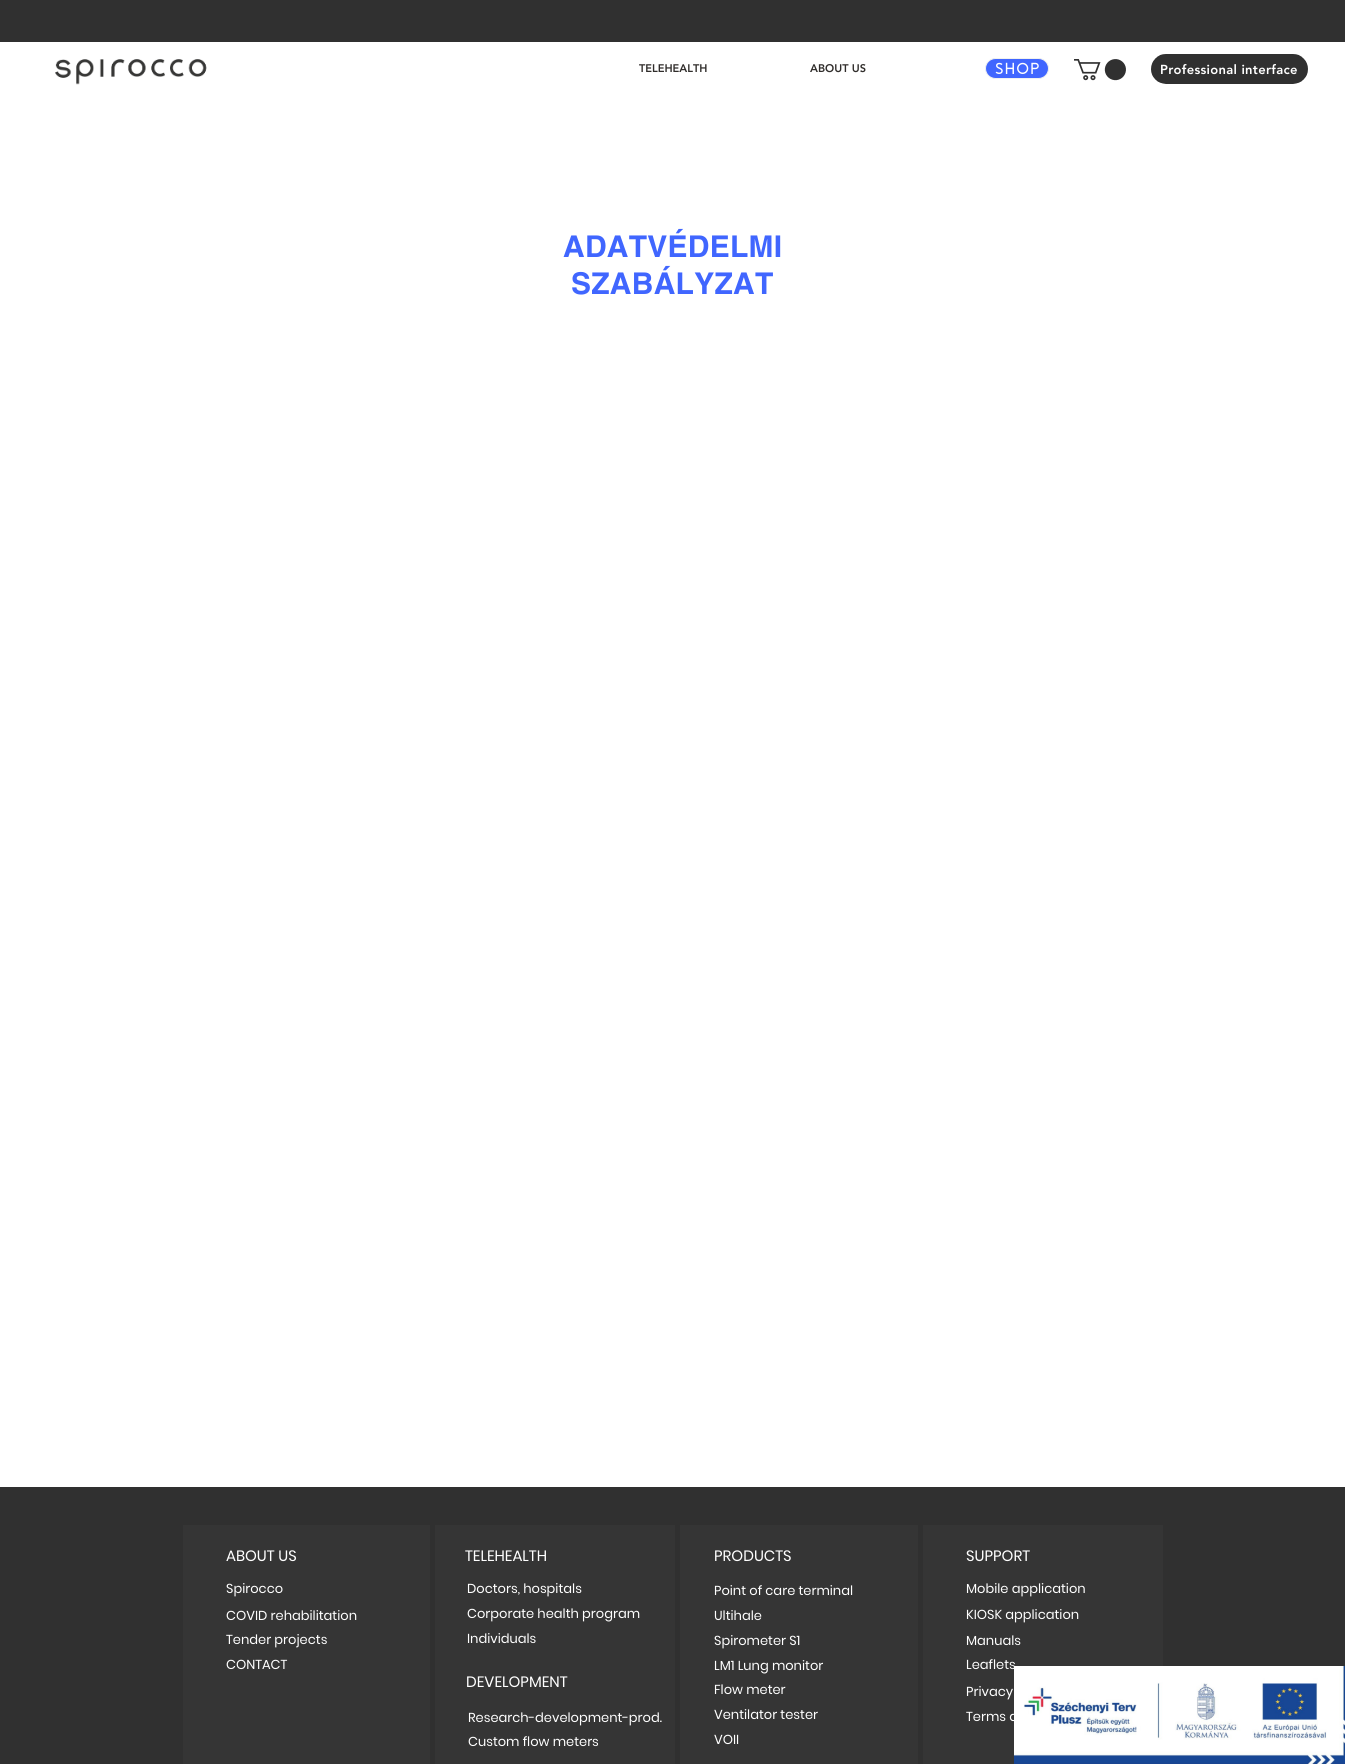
#include <cairo.h>
#include <math.h>
#include <stddef.h>


static void set_color(cairo_t *cr, unsigned color) {
    cairo_set_source_rgb(cr, (color >> 16) / 255.0, (color >> 8 & 255) / 255.0, (color & 255) / 255.0);
}

static void draw_text(cairo_t *cr, double x, double y, const char *s, const char *family, double size, int italic, int bold, unsigned color) {
    cairo_select_font_face(cr, family, italic ? CAIRO_FONT_SLANT_ITALIC : CAIRO_FONT_SLANT_NORMAL,
        bold ? CAIRO_FONT_WEIGHT_BOLD : CAIRO_FONT_WEIGHT_NORMAL);
    cairo_set_font_size(cr, size);
    set_color(cr, color);
    cairo_move_to(cr, x, y);
    cairo_show_text(cr, s);
}

static void draw_spaced(cairo_t *cr, double x, double y, const char *s, double letter, double word) {
    cairo_move_to(cr, x, y);
    while (*s) {
        char ch[5] = {0};
        int n = 0;
        do ch[n++] = *s++; while ((*s & 0xC0) == 0x80);
        cairo_show_text(cr, ch);
        cairo_rel_move_to(cr, letter + word * (*ch == ' '), 0);
    }
}

static void fill_rect(cairo_t *cr, double x, double y, double w, double h, unsigned color) {
    set_color(cr, color);
    cairo_rectangle(cr, x, y, w, h);
    cairo_fill(cr);
}

static void rounded_rect(cairo_t *cr, double x, double y, double w, double h, double r) {
    cairo_new_sub_path(cr);
    cairo_arc(cr, x + w - r, y + h - r, r, 0, M_PI / 2);
    cairo_arc(cr, x + r, y + h - r, r, M_PI / 2, M_PI);
    cairo_arc(cr, x + r, y + r, r, M_PI, 1.5 * M_PI);
    cairo_arc(cr, x + w - r, y + r, r, 1.5 * M_PI, 2 * M_PI);
    cairo_close_path(cr);
}

static void draw_image(cairo_t *cr, const char *path, double x, double y, double w, double h) {
    cairo_surface_t *image = cairo_image_surface_create_from_png(path);
    cairo_save(cr);
    cairo_set_source_surface(cr, image, x, y);
    cairo_rectangle(cr, x, y, w, h);
    cairo_fill(cr);
    cairo_restore(cr);
    cairo_surface_destroy(image);
}

int main(void) {
    cairo_surface_t *surface = cairo_image_surface_create(CAIRO_FORMAT_RGB24, 1345, 1764);
    cairo_t *cr = cairo_create(surface);
    cairo_font_options_t *options = cairo_font_options_create();
    cairo_font_options_set_hint_metrics(options, CAIRO_HINT_METRICS_OFF);
    cairo_font_options_set_hint_style(options, CAIRO_HINT_STYLE_NONE);
    cairo_set_font_options(cr, options);
    cairo_set_miter_limit(cr, 4);
    set_color(cr, 0xFFFFFF);
    cairo_paint(cr);
    fill_rect(cr, 0, 0, 1345, 42, 0x303030);
    draw_image(cr, "assets/img1.png", 55, 59, 152, 26);
    draw_text(cr, 639, 72, "TELEHEALTH", "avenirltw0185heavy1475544 Black", 11, 0, 0, 0x302D2B);
    draw_text(cr, 810, 72, "ABOUT US", "avenirltw0185heavy1475544 Black", 11, 0, 0, 0x302D2B);
    set_color(cr, 0x4066FF);
    rounded_rect(cr, 985.5, 58.5, 63, 20, 10);
    cairo_fill_preserve(cr);
    set_color(cr, 0xF0F1F0);
    cairo_set_line_width(cr, 1);
    cairo_stroke(cr);
    cairo_select_font_face(cr, "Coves", CAIRO_FONT_SLANT_NORMAL, CAIRO_FONT_WEIGHT_BOLD);
    cairo_set_font_size(cr, 16);
    set_color(cr, 0xFFFFFF);
    draw_spaced(cr, 995, 74, "SHOP", 1, 0);
    draw_image(cr, "assets/img2.png", 1074, 59, 52, 22);
    draw_image(cr, "assets/img3.png", 1151, 54, 157, 30);
    cairo_select_font_face(cr, "avenirltw0185heavy1475544 Black", CAIRO_FONT_SLANT_NORMAL, CAIRO_FONT_WEIGHT_NORMAL);
    cairo_set_font_size(cr, 13);
    draw_spaced(cr, 1160, 74, "Professional interface", 0.3, 0);
    cairo_select_font_face(cr, "helvetica", CAIRO_FONT_SLANT_NORMAL, CAIRO_FONT_WEIGHT_BOLD);
    cairo_set_font_size(cr, 30);
    set_color(cr, 0x4066FF);
    draw_spaced(cr, 563, 257, "ADATVÉDELMI", 0.25, 0);
    draw_spaced(cr, 571, 294, "SZABÁLYZAT", 0.25, 0);
    fill_rect(cr, 0, 1487, 1345, 277, 0x303030);
    fill_rect(cr, 183, 1525, 247, 239, 0x353535);
    draw_text(cr, 226, 1561, "ABOUT US", "Poppins", 15, 0, 0, 0xFFFFFF);
    draw_text(cr, 226, 1593, "Spirocco", "Poppins", 13, 0, 0, 0xFFFFFF);
    draw_text(cr, 226, 1620, "COVID rehabilitation", "Poppins", 13, 0, 0, 0xFFFFFF);
    draw_text(cr, 226, 1644, "Tender projects", "Poppins", 13, 0, 0, 0xFFFFFF);
    draw_text(cr, 226, 1669, "CONTACT", "Poppins", 13, 0, 0, 0xFFFFFF);
    fill_rect(cr, 435, 1525, 240, 239, 0x353535);
    draw_text(cr, 465, 1561, "TELEHEALTH", "Poppins", 15, 0, 0, 0xFFFFFF);
    draw_text(cr, 467, 1593, "Doctors, hospitals", "Poppins", 13, 0, 0, 0xFFFFFF);
    draw_text(cr, 467, 1618, "Corporate health program", "Poppins", 13, 0, 0, 0xFFFFFF);
    draw_text(cr, 467, 1643, "Individuals", "Poppins", 13, 0, 0, 0xFFFFFF);
    draw_text(cr, 466, 1687, "DEVELOPMENT", "Poppins", 15, 0, 0, 0xFFFFFF);
    draw_text(cr, 468, 1722, "Research-development-prod.", "Poppins", 13, 0, 0, 0xFFFFFF);
    draw_text(cr, 468, 1746, "Custom flow meters", "Poppins", 13, 0, 0, 0xFFFFFF);
    fill_rect(cr, 680, 1525, 238, 239, 0x353535);
    draw_text(cr, 714, 1561, "PRODUCTS", "Poppins", 15, 0, 0, 0xFFFFFF);
    draw_text(cr, 714, 1595, "Point of care terminal", "Poppins", 13, 0, 0, 0xFFFFFF);
    draw_text(cr, 714, 1620, "Ultihale", "Poppins", 13, 0, 0, 0xFFFFFF);
    draw_text(cr, 714, 1645, "Spirometer S1", "Poppins", 13, 0, 0, 0xFFFFFF);
    draw_text(cr, 714, 1670, "LM1 Lung monitor", "Poppins", 13, 0, 0, 0xFFFFFF);
    draw_text(cr, 714, 1694, "Flow meter", "Poppins", 13, 0, 0, 0xFFFFFF);
    draw_text(cr, 714, 1719, "Ventilator tester", "Poppins", 13, 0, 0, 0xFFFFFF);
    draw_text(cr, 714, 1744, "VOII", "Poppins", 13, 0, 0, 0xFFFFFF);
    fill_rect(cr, 923, 1525, 240, 239, 0x353535);
    draw_text(cr, 966, 1561, "SUPPORT", "Poppins", 15, 0, 0, 0xFFFFFF);
    draw_text(cr, 966, 1593, "Mobile application", "Poppins", 13, 0, 0, 0xFFFFFF);
    draw_text(cr, 966, 1619, "KIOSK application", "Poppins", 13, 0, 0, 0xFFFFFF);
    draw_text(cr, 966, 1645, "Manuals", "Poppins", 13, 0, 0, 0xFFFFFF);
    draw_text(cr, 966, 1669, "Leaflets", "Poppins", 13, 0, 0, 0xFFFFFF);
    draw_text(cr, 966, 1696, "Privacy", "Poppins", 13, 0, 0, 0xFFFFFF);
    draw_text(cr, 966, 1721, "Terms a", "Poppins", 13, 0, 0, 0xFFFFFF);
    draw_image(cr, "assets/img4.png", 1014, 1666, 331, 98);
    cairo_surface_write_to_png(surface, "output.png");
    cairo_font_options_destroy(options);
    cairo_destroy(cr);
    cairo_surface_destroy(surface);
    return 0;
}
